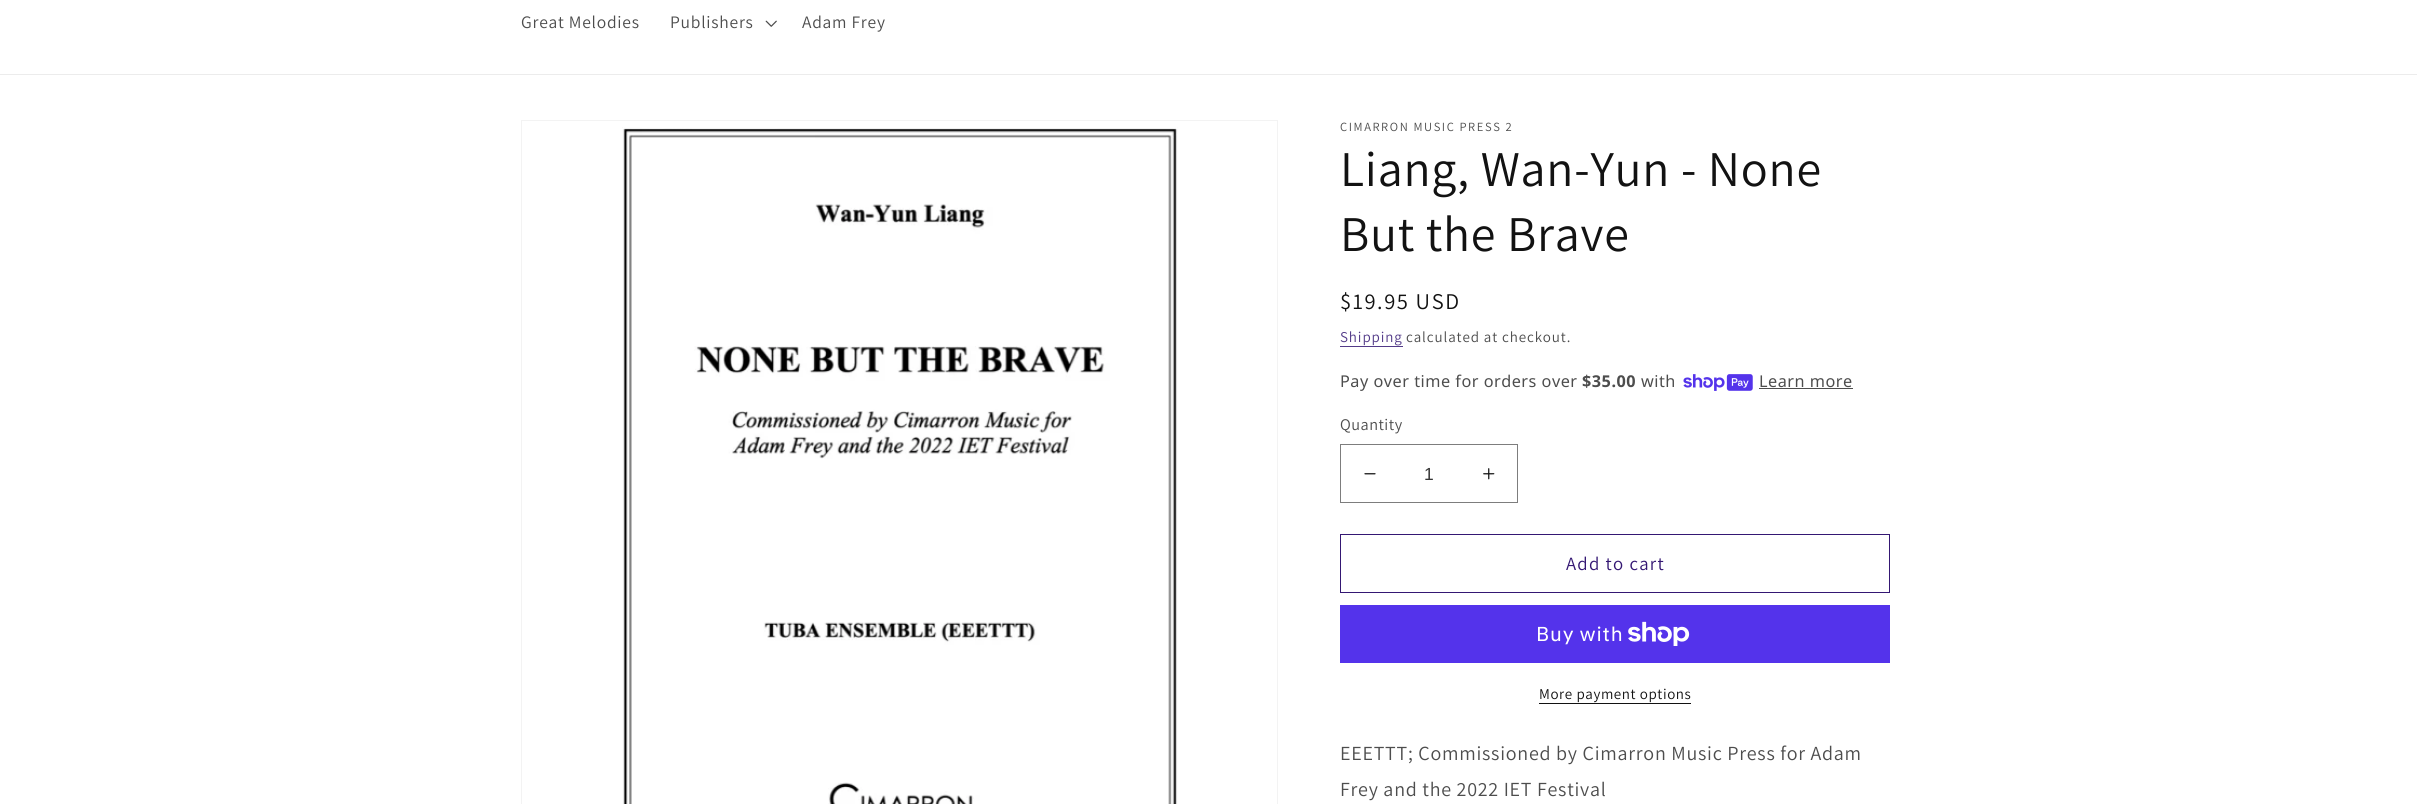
#include <cairo.h>
#include <math.h>
#include <stddef.h>


static void set_color(cairo_t *cr, unsigned color) {
    cairo_set_source_rgb(cr, (color >> 16) / 255.0, (color >> 8 & 255) / 255.0, (color & 255) / 255.0);
}

static void draw_text(cairo_t *cr, double x, double y, const char *s, const char *family, double size, int italic, int bold, unsigned color) {
    cairo_select_font_face(cr, family, italic ? CAIRO_FONT_SLANT_ITALIC : CAIRO_FONT_SLANT_NORMAL,
        bold ? CAIRO_FONT_WEIGHT_BOLD : CAIRO_FONT_WEIGHT_NORMAL);
    cairo_set_font_size(cr, size);
    set_color(cr, color);
    cairo_move_to(cr, x, y);
    cairo_show_text(cr, s);
}

static void draw_spaced(cairo_t *cr, double x, double y, const char *s, double letter, double word) {
    cairo_move_to(cr, x, y);
    while (*s) {
        char ch[5] = {0};
        int n = 0;
        do ch[n++] = *s++; while ((*s & 0xC0) == 0x80);
        cairo_show_text(cr, ch);
        cairo_rel_move_to(cr, letter + word * (*ch == ' '), 0);
    }
}

static void fill_rect(cairo_t *cr, double x, double y, double w, double h, unsigned color) {
    set_color(cr, color);
    cairo_rectangle(cr, x, y, w, h);
    cairo_fill(cr);
}

static void draw_image(cairo_t *cr, const char *path, double x, double y, double w, double h) {
    cairo_surface_t *image = cairo_image_surface_create_from_png(path);
    cairo_save(cr);
    cairo_set_source_surface(cr, image, x, y);
    cairo_rectangle(cr, x, y, w, h);
    cairo_fill(cr);
    cairo_restore(cr);
    cairo_surface_destroy(image);
}

int main(void) {
    cairo_surface_t *surface = cairo_image_surface_create(CAIRO_FORMAT_RGB24, 2417, 804);
    cairo_t *cr = cairo_create(surface);
    cairo_font_options_t *options = cairo_font_options_create();
    cairo_font_options_set_hint_metrics(options, CAIRO_HINT_METRICS_OFF);
    cairo_font_options_set_hint_style(options, CAIRO_HINT_STYLE_NONE);
    cairo_set_font_options(cr, options);
    cairo_set_miter_limit(cr, 4);
    set_color(cr, 0xFFFFFF);
    cairo_paint(cr);
    fill_rect(cr, 0, 74, 2417, 1, 0xECECEC);
    cairo_select_font_face(cr, "Assistant", CAIRO_FONT_SLANT_NORMAL, CAIRO_FONT_WEIGHT_NORMAL);
    cairo_set_font_size(cr, 17.5);
    set_color(cr, 0x4D4D4D);
    draw_spaced(cr, 521, 28, "Great Melodies", 0.75, 0);
    draw_spaced(cr, 670, 28, "Publishers", 0.75, 0);
    draw_image(cr, "assets/img1.png", 765, 20, 12, 7);
    draw_spaced(cr, 802, 28, "Adam Frey", 0.75, 0);
    cairo_rectangle(cr, 521.5, 120.5, 756, 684);
    set_color(cr, 0xF3F3F3);
    cairo_set_line_width(cr, 1);
    cairo_stroke(cr);
    draw_image(cr, "assets/img2.png", 622, 127, 556, 677);
    cairo_set_font_size(cr, 12.5);
    set_color(cr, 0x4D4D4D);
    draw_spaced(cr, 1340, 131, "CIMARRON MUSIC PRESS 2", 1.6, 0);
    cairo_set_font_size(cr, 50);
    set_color(cr, 0x121212);
    draw_spaced(cr, 1340, 186, "Liang, Wan-Yun - None", 0.75, 0);
    draw_spaced(cr, 1340, 251, "But the Brave", 0.75, 0);
    cairo_set_font_size(cr, 22.5);
    draw_spaced(cr, 1340, 309, "$19.95 USD", 1.6, 0);
    cairo_set_font_size(cr, 15);
    set_color(cr, 0x523A88);
    draw_spaced(cr, 1340, 342, "Shipping", 0.9, 0);
    fill_rect(cr, 1340, 346, 63, 1, 0x523A88);
    set_color(cr, 0x4D4D4D);
    draw_spaced(cr, 1406, 342, "calculated at checkout.", 0.9, 0);
    cairo_select_font_face(cr, "Noto Sans", CAIRO_FONT_SLANT_NORMAL, CAIRO_FONT_WEIGHT_NORMAL);
    cairo_set_font_size(cr, 16.25);
    draw_spaced(cr, 1340, 387, "Pay over time for orders over", 0.5, 0);
    cairo_select_font_face(cr, "Noto Sans", CAIRO_FONT_SLANT_NORMAL, CAIRO_FONT_WEIGHT_BOLD);
    draw_spaced(cr, 1582, 387, "$35.00", 0.5, 0);
    cairo_select_font_face(cr, "Noto Sans", CAIRO_FONT_SLANT_NORMAL, CAIRO_FONT_WEIGHT_NORMAL);
    draw_spaced(cr, 1641, 387, "with", 0.5, 0);
    draw_image(cr, "assets/img3.png", 1683, 374, 70, 17);
    draw_spaced(cr, 1759, 387, "Learn more", 0.5, 0);
    fill_rect(cr, 1759, 388, 94, 1, 0x4D4D4D);
    cairo_select_font_face(cr, "Assistant", CAIRO_FONT_SLANT_NORMAL, CAIRO_FONT_WEIGHT_NORMAL);
    draw_spaced(cr, 1340, 430, "Quantity", 0.5, 0);
    draw_image(cr, "assets/img4.png", 1364, 473, 12, 2);
    draw_image(cr, "assets/img5.png", 1483, 468, 12, 12);
    cairo_rectangle(cr, 1340.5, 444.5, 177, 58);
    set_color(cr, 0x7D7D7D);
    cairo_stroke(cr);
    draw_text(cr, 1424, 480, "1", "Liberation Sans", 17.5, 0, 0, 0x363636);
    cairo_rectangle(cr, 1340.5, 534.5, 549, 58);
    set_color(cr, 0x341773);
    cairo_stroke(cr);
    cairo_select_font_face(cr, "Assistant", CAIRO_FONT_SLANT_NORMAL, CAIRO_FONT_WEIGHT_NORMAL);
    cairo_set_font_size(cr, 18.75);
    draw_spaced(cr, 1566, 570, "Add to cart", 1.25, 0);
    fill_rect(cr, 1340, 605, 550, 58, 0x5433EB);
    cairo_select_font_face(cr, "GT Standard", CAIRO_FONT_SLANT_NORMAL, CAIRO_FONT_WEIGHT_NORMAL);
    cairo_set_font_size(cr, 20);
    set_color(cr, 0xFFFFFF);
    draw_spaced(cr, 1536, 641, "Buy with", 0.75, 0);
    draw_image(cr, "assets/img6.png", 1628, 621, 62, 25);
    cairo_select_font_face(cr, "Assistant", CAIRO_FONT_SLANT_NORMAL, CAIRO_FONT_WEIGHT_NORMAL);
    cairo_set_font_size(cr, 15);
    set_color(cr, 0x121212);
    draw_spaced(cr, 1539, 699, "More payment options", 0.6, 0);
    fill_rect(cr, 1539, 703, 152, 1, 0x121212);
    cairo_set_font_size(cr, 20);
    set_color(cr, 0x4D4D4D);
    draw_spaced(cr, 1340, 760, "EEETTT; Commissioned by Cimarron Music Press for Adam", 0.75, 0);
    draw_spaced(cr, 1340, 796, "Frey and the 2022 IET Festival", 0.75, 0);
    cairo_surface_write_to_png(surface, "output.png");
    cairo_font_options_destroy(options);
    cairo_destroy(cr);
    cairo_surface_destroy(surface);
    return 0;
}
